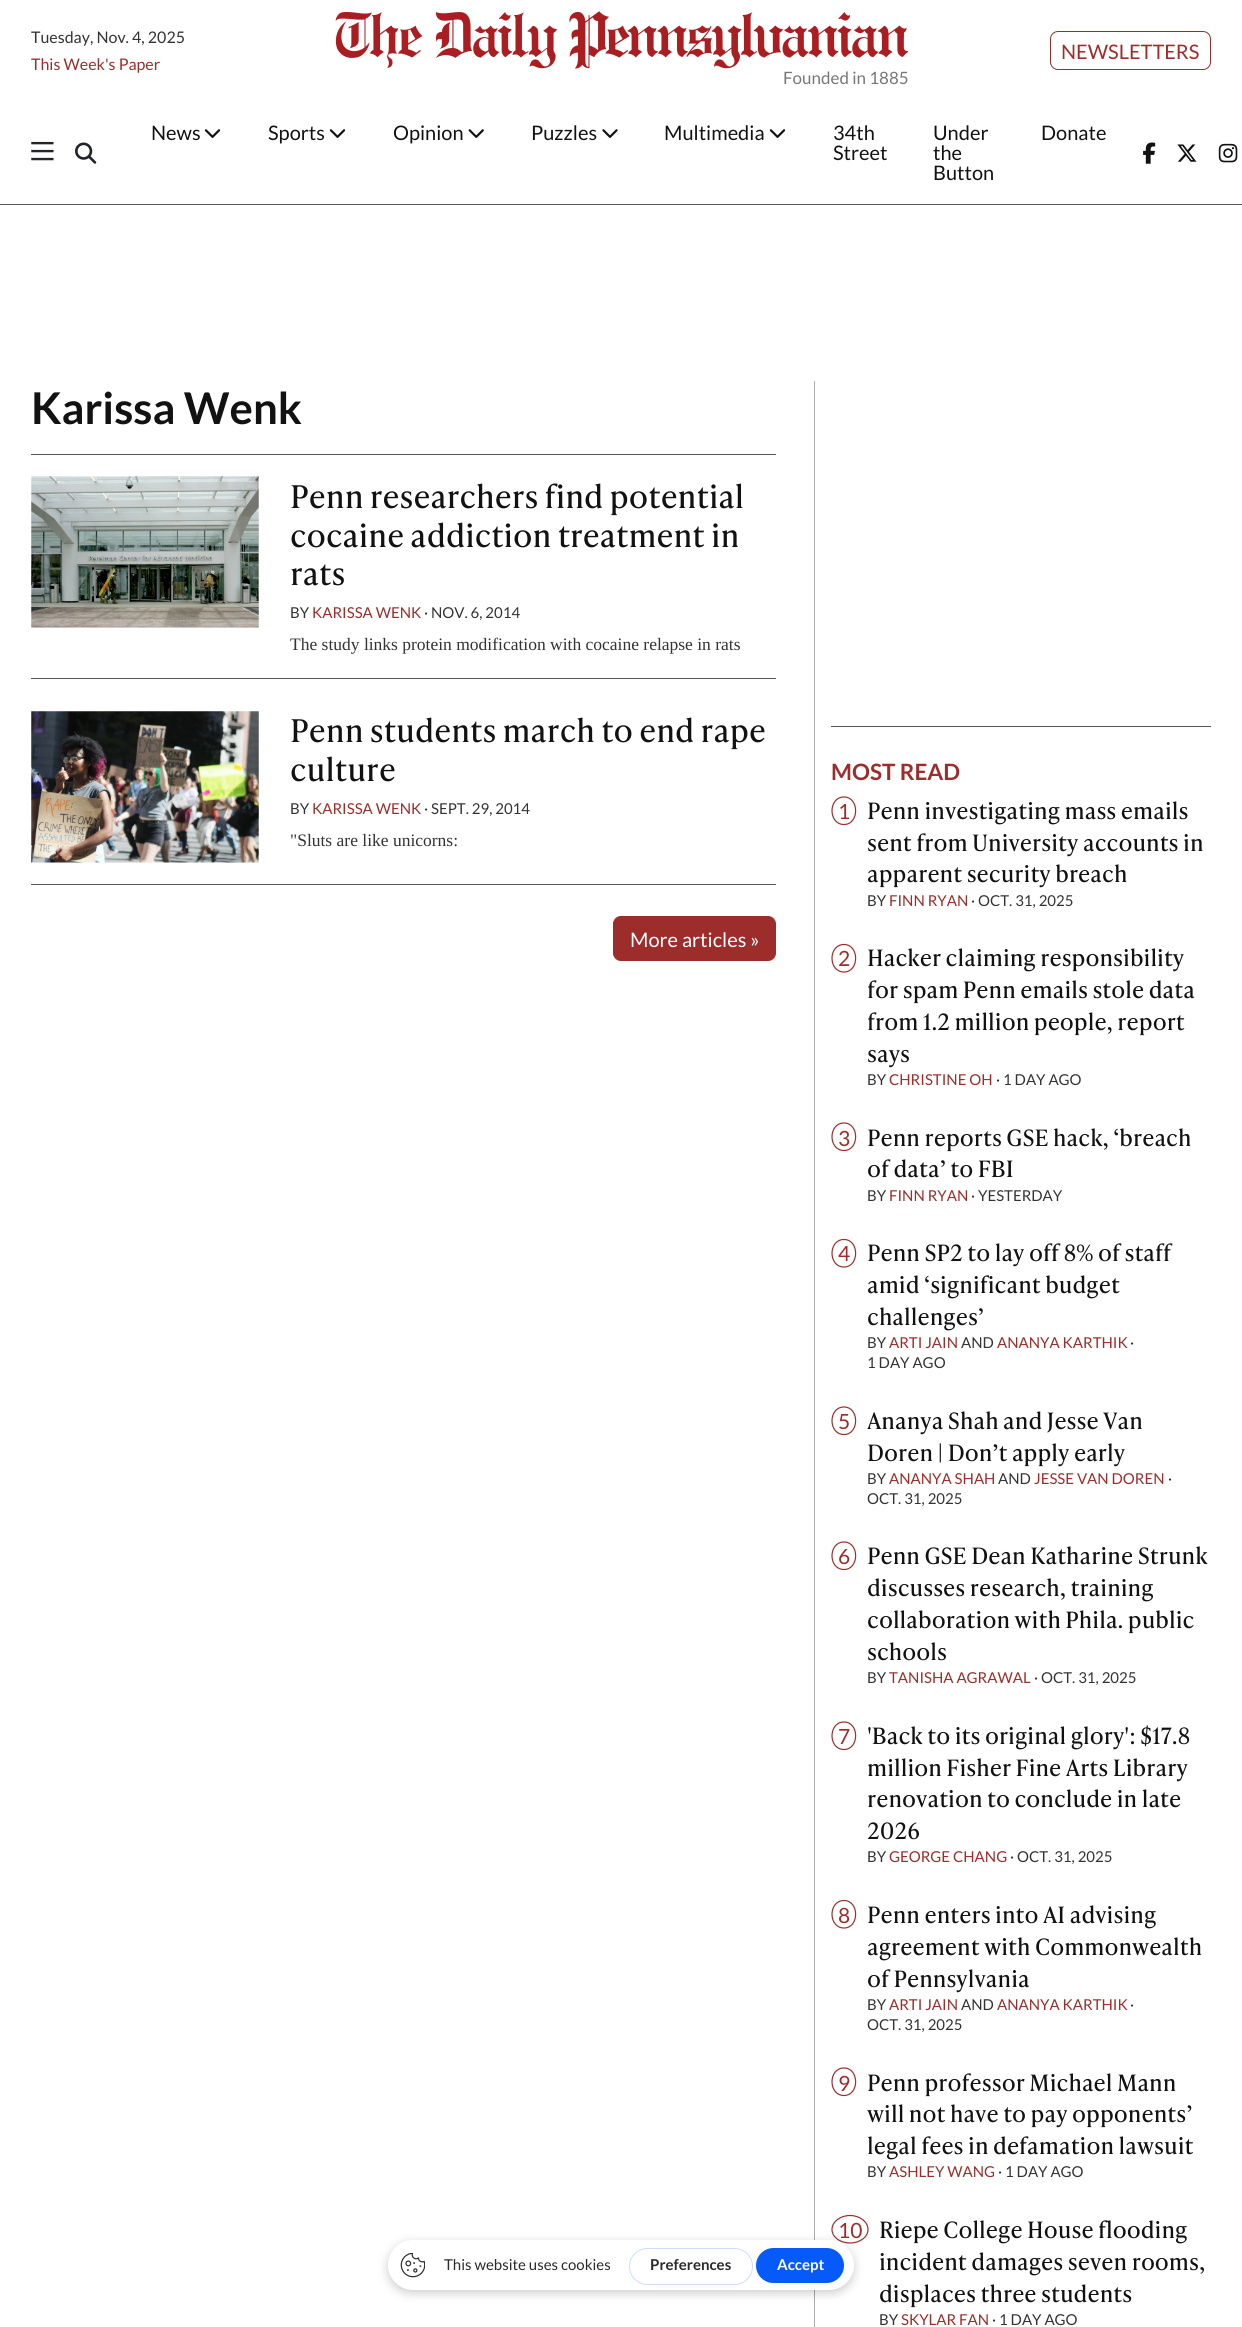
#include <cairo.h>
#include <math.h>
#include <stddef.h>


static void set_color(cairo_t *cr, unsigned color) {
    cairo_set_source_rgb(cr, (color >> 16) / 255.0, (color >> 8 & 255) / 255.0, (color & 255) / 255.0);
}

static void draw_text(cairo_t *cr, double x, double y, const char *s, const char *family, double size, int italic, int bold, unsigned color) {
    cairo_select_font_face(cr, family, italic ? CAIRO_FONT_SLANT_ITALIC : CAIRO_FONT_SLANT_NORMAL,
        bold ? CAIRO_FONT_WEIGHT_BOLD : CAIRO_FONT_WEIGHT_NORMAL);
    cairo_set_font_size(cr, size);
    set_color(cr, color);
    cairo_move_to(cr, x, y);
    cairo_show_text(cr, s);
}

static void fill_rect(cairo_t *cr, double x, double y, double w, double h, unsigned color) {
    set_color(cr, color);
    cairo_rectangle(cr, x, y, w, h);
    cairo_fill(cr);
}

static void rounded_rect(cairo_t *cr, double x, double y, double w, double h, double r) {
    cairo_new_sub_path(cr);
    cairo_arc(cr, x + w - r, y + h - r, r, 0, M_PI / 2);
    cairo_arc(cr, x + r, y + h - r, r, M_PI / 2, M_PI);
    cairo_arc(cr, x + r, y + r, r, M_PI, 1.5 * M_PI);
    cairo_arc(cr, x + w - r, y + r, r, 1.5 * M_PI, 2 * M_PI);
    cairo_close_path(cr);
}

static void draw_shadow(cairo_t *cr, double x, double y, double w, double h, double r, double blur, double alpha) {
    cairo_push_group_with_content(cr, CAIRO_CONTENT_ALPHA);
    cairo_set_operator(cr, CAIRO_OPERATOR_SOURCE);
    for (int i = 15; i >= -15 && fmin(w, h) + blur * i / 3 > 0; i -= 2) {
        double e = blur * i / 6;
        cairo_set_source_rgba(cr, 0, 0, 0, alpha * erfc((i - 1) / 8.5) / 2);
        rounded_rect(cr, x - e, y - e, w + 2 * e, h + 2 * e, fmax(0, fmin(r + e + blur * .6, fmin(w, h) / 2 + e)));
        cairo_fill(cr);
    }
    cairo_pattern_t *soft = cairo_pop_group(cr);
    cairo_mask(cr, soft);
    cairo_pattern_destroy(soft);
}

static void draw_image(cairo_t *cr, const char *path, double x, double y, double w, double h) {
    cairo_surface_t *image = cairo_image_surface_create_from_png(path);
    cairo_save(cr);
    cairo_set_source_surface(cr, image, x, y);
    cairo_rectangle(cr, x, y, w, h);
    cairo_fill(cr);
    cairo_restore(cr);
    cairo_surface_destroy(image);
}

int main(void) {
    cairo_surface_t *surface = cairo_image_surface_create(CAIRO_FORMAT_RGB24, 1242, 2327);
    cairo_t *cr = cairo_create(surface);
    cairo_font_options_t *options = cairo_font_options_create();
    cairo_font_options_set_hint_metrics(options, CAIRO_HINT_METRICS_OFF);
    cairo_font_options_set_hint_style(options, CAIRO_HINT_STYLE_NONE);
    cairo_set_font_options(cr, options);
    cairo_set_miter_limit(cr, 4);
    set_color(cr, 0xFFFFFF);
    cairo_paint(cr);
    draw_text(cr, 31, 43, "Tuesday, Nov. 4, 2025", "Lato", 16, 0, 0, 0x333333);
    draw_text(cr, 31, 70, "This Week's Paper", "Lato", 16, 0, 0, 0x9C2D2A);
    rounded_rect(cr, 1050.5, 31.5, 160, 38, 7.5);
    cairo_set_line_width(cr, 1);
    cairo_stroke(cr);
    draw_text(cr, 1061, 59, "NEWSLETTERS", "Lato", 20, 0, 0, 0x9C2D2A);
    draw_image(cr, "assets/img1.png", 335, 11, 574, 58);
    draw_text(cr, 783, 84, "Founded in 1885", "Lato", 17, 0, 0, 0x777777);
    fill_rect(cr, 0, 204, 1242, 1, 0x575757);
    draw_image(cr, "assets/img2.png", 31, 141, 23, 20);
    draw_image(cr, "assets/img3.png", 75, 142, 22, 22);
    draw_text(cr, 151, 140, "News", "Lato", 20, 0, 0, 0x121212);
    draw_image(cr, "assets/img4.png", 204, 129, 17, 9);
    draw_text(cr, 268, 140, "Sports", "Lato", 20, 0, 0, 0x121212);
    draw_image(cr, "assets/img4.png", 329, 129, 17, 9);
    draw_text(cr, 393, 140, "Opinion", "Lato", 20, 0, 0, 0x121212);
    draw_image(cr, "assets/img5.png", 468, 129, 16, 9);
    draw_text(cr, 531, 140, "Puzzles", "Lato", 20, 0, 0, 0x121212);
    draw_image(cr, "assets/img6.png", 602, 129, 16, 9);
    draw_text(cr, 664, 140, "Multimedia", "Lato", 20, 0, 0, 0x121212);
    draw_image(cr, "assets/img4.png", 769, 129, 17, 9);
    draw_text(cr, 833, 140, "34th", "Lato", 20, 0, 0, 0x121212);
    draw_text(cr, 833, 160, "Street", "Lato", 20, 0, 0, 0x121212);
    draw_text(cr, 933, 140, "Under", "Lato", 20, 0, 0, 0x121212);
    draw_text(cr, 933, 160, "the", "Lato", 20, 0, 0, 0x121212);
    draw_text(cr, 933, 180, "Button", "Lato", 20, 0, 0, 0x121212);
    draw_text(cr, 1041, 140, "Donate", "Lato", 20, 0, 0, 0x121212);
    draw_image(cr, "assets/img7.png", 1143, 142, 13, 22);
    draw_image(cr, "assets/img8.png", 1177, 144, 20, 18);
    draw_image(cr, "assets/img9.png", 1218, 143, 20, 20);
    fill_rect(cr, 814, 381, 1, 1946, 0xABABAB);
    draw_text(cr, 31, 424, "Karissa Wenk", "Lato", 43.75, 0, 1, 0x121212);
    fill_rect(cr, 31, 454, 745, 1, 0x575757);
    draw_image(cr, "assets/img10.png", 31, 476, 228, 152);
    draw_text(cr, 290, 508, "Penn researchers find potential", "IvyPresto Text", 31.25, 0, 0, 0x121212);
    draw_text(cr, 290, 547, "cocaine addiction treatment in", "IvyPresto Text", 31.25, 0, 0, 0x121212);
    draw_text(cr, 290, 585, "rats", "IvyPresto Text", 31.25, 0, 0, 0x121212);
    draw_text(cr, 290, 618, "BY", "Lato", 15, 0, 0, 0x333333);
    draw_text(cr, 312, 618, "KARISSA WENK", "Lato", 15, 0, 0, 0x9C2D2A);
    draw_text(cr, 424, 618, "· NOV. 6, 2014", "Lato", 15, 0, 0, 0x333333);
    draw_text(cr, 290, 650, "The study links protein modification with cocaine relapse in rats", "Liberation Serif", 17.5, 0, 0, 0x333333);
    fill_rect(cr, 31, 678, 745, 1, 0x575757);
    draw_image(cr, "assets/img11.png", 31, 711, 228, 152);
    draw_text(cr, 290, 742, "Penn students march to end rape", "IvyPresto Text", 31.25, 0, 0, 0x121212);
    draw_text(cr, 290, 781, "culture", "IvyPresto Text", 31.25, 0, 0, 0x121212);
    draw_text(cr, 290, 814, "BY", "Lato", 15, 0, 0, 0x333333);
    draw_text(cr, 312, 814, "KARISSA WENK", "Lato", 15, 0, 0, 0x9C2D2A);
    draw_text(cr, 424, 814, "· SEPT. 29, 2014", "Lato", 15, 0, 0, 0x333333);
    draw_text(cr, 290, 846, "\"Sluts are like unicorns:", "Liberation Serif", 17.5, 0, 0, 0x333333);
    fill_rect(cr, 31, 884, 745, 1, 0x575757);
    set_color(cr, 0x9C2D2A);
    rounded_rect(cr, 613.5, 916.5, 162, 44, 7.5);
    cairo_fill_preserve(cr);
    cairo_stroke(cr);
    draw_text(cr, 630, 947, "More articles »", "Lato", 20, 0, 0, 0xFFFFFF);
    fill_rect(cr, 831, 726, 380, 1, 0x575757);
    draw_text(cr, 831, 780, "MOST READ", "Lato", 22.5, 0, 1, 0x9C2D2A);
    cairo_new_path(cr);
    cairo_move_to(cr, 844, 797);
    cairo_curve_to(cr, 859.5, 797, 859.5, 824.5, 844, 824.5);
    cairo_curve_to(cr, 828, 824.5, 828, 797, 844, 797);
    cairo_close_path(cr);
    cairo_set_line_width(cr, 1.2);
    cairo_stroke(cr);
    draw_text(cr, 838, 819, "1", "Lato", 21, 0, 0, 0x9C2D2A);
    draw_text(cr, 867, 819, "Penn investigating mass emails", "IvyPresto Text", 22.5, 0, 0, 0x121212);
    draw_text(cr, 867, 851, "sent from University accounts in", "IvyPresto Text", 22.5, 0, 0, 0x121212);
    draw_text(cr, 867, 882, "apparent security breach", "IvyPresto Text", 22.5, 0, 0, 0x121212);
    draw_text(cr, 867, 906, "BY", "Lato", 15, 0, 0, 0x333333);
    draw_text(cr, 889, 906, "FINN RYAN", "Lato", 15, 0, 0, 0x9C2D2A);
    draw_text(cr, 971, 906, "· OCT. 31, 2025", "Lato", 15, 0, 0, 0x333333);
    cairo_new_path(cr);
    cairo_move_to(cr, 844, 944.5);
    cairo_curve_to(cr, 859.5, 944.5, 859.5, 972, 844, 972);
    cairo_curve_to(cr, 828, 972, 828, 944.5, 844, 944.5);
    cairo_close_path(cr);
    set_color(cr, 0x9C2D2A);
    cairo_stroke(cr);
    draw_text(cr, 838, 966, "2", "Lato", 21, 0, 0, 0x9C2D2A);
    draw_text(cr, 867, 966, "Hacker claiming responsibility", "IvyPresto Text", 22.5, 0, 0, 0x121212);
    draw_text(cr, 867, 998, "for spam Penn emails stole data", "IvyPresto Text", 22.5, 0, 0, 0x121212);
    draw_text(cr, 867, 1030, "from 1.2 million people, report", "IvyPresto Text", 22.5, 0, 0, 0x121212);
    draw_text(cr, 867, 1062, "says", "IvyPresto Text", 22.5, 0, 0, 0x121212);
    draw_text(cr, 867, 1085, "BY", "Lato", 15, 0, 0, 0x333333);
    draw_text(cr, 889, 1085, "CHRISTINE OH", "Lato", 15, 0, 0, 0x9C2D2A);
    draw_text(cr, 996, 1085, "· 1 DAY AGO", "Lato", 15, 0, 0, 0x333333);
    cairo_new_path(cr);
    cairo_move_to(cr, 844, 1123);
    cairo_curve_to(cr, 859.5, 1123, 859.5, 1150.5, 844, 1150.5);
    cairo_curve_to(cr, 828, 1150.5, 828, 1123, 844, 1123);
    cairo_close_path(cr);
    set_color(cr, 0x9C2D2A);
    cairo_stroke(cr);
    draw_text(cr, 838, 1146, "3", "Lato", 21, 0, 0, 0x9C2D2A);
    draw_text(cr, 867, 1146, "Penn reports GSE hack, ‘breach", "IvyPresto Text", 22.5, 0, 0, 0x121212);
    draw_text(cr, 867, 1177, "of data’ to FBI", "IvyPresto Text", 22.5, 0, 0, 0x121212);
    draw_text(cr, 867, 1201, "BY", "Lato", 15, 0, 0, 0x333333);
    draw_text(cr, 889, 1201, "FINN RYAN", "Lato", 15, 0, 0, 0x9C2D2A);
    draw_text(cr, 971, 1201, "· YESTERDAY", "Lato", 15, 0, 0, 0x333333);
    cairo_new_path(cr);
    cairo_move_to(cr, 844, 1239.5);
    cairo_curve_to(cr, 859.5, 1239.5, 859.5, 1267, 844, 1267);
    cairo_curve_to(cr, 828, 1267, 828, 1239.5, 844, 1239.5);
    cairo_close_path(cr);
    set_color(cr, 0x9C2D2A);
    cairo_stroke(cr);
    draw_text(cr, 838, 1261, "4", "Lato", 21, 0, 0, 0x9C2D2A);
    draw_text(cr, 867, 1261, "Penn SP2 to lay off 8% of staff", "IvyPresto Text", 22.5, 0, 0, 0x121212);
    draw_text(cr, 867, 1293, "amid ‘significant budget", "IvyPresto Text", 22.5, 0, 0, 0x121212);
    draw_text(cr, 867, 1325, "challenges’", "IvyPresto Text", 22.5, 0, 0, 0x121212);
    draw_text(cr, 867, 1348, "BY", "Lato", 15, 0, 0, 0x333333);
    draw_text(cr, 889, 1348, "ARTI JAIN", "Lato", 15, 0, 0, 0x9C2D2A);
    draw_text(cr, 961, 1348, "AND", "Lato", 15, 0, 0, 0x333333);
    draw_text(cr, 997, 1348, "ANANYA KARTHIK", "Lato", 15, 0, 0, 0x9C2D2A);
    draw_text(cr, 1130, 1348, "·", "Lato", 15, 0, 0, 0x333333);
    draw_text(cr, 867, 1368, "1 DAY AGO", "Lato", 15, 0, 0, 0x333333);
    cairo_new_path(cr);
    cairo_move_to(cr, 844, 1407);
    cairo_curve_to(cr, 859.5, 1407, 859.5, 1434.5, 844, 1434.5);
    cairo_curve_to(cr, 828, 1434.5, 828, 1407, 844, 1407);
    cairo_close_path(cr);
    set_color(cr, 0x9C2D2A);
    cairo_stroke(cr);
    draw_text(cr, 838, 1429, "5", "Lato", 21, 0, 0, 0x9C2D2A);
    draw_text(cr, 867, 1429, "Ananya Shah and Jesse Van", "IvyPresto Text", 22.5, 0, 0, 0x121212);
    draw_text(cr, 867, 1461, "Doren | Don’t apply early", "IvyPresto Text", 22.5, 0, 0, 0x121212);
    draw_text(cr, 867, 1484, "BY", "Lato", 15, 0, 0, 0x333333);
    draw_text(cr, 889, 1484, "ANANYA SHAH", "Lato", 15, 0, 0, 0x9C2D2A);
    draw_text(cr, 998, 1484, "AND", "Lato", 15, 0, 0, 0x333333);
    draw_text(cr, 1034, 1484, "JESSE VAN DOREN", "Lato", 15, 0, 0, 0x9C2D2A);
    draw_text(cr, 1168, 1484, "·", "Lato", 15, 0, 0, 0x333333);
    draw_text(cr, 867, 1504, "OCT. 31, 2025", "Lato", 15, 0, 0, 0x333333);
    cairo_new_path(cr);
    cairo_move_to(cr, 844, 1542);
    cairo_curve_to(cr, 859.5, 1542, 859.5, 1569.5, 844, 1569.5);
    cairo_curve_to(cr, 828, 1569.5, 828, 1542, 844, 1542);
    cairo_close_path(cr);
    set_color(cr, 0x9C2D2A);
    cairo_stroke(cr);
    draw_text(cr, 838, 1564, "6", "Lato", 21, 0, 0, 0x9C2D2A);
    draw_text(cr, 867, 1564, "Penn GSE Dean Katharine Strunk", "IvyPresto Text", 22.5, 0, 0, 0x121212);
    draw_text(cr, 867, 1596, "discusses research, training", "IvyPresto Text", 22.5, 0, 0, 0x121212);
    draw_text(cr, 867, 1628, "collaboration with Phila. public", "IvyPresto Text", 22.5, 0, 0, 0x121212);
    draw_text(cr, 867, 1660, "schools", "IvyPresto Text", 22.5, 0, 0, 0x121212);
    draw_text(cr, 867, 1683, "BY", "Lato", 15, 0, 0, 0x333333);
    draw_text(cr, 889, 1683, "TANISHA AGRAWAL", "Lato", 15, 0, 0, 0x9C2D2A);
    draw_text(cr, 1034, 1683, "· OCT. 31, 2025", "Lato", 15, 0, 0, 0x333333);
    cairo_new_path(cr);
    cairo_move_to(cr, 844, 1722);
    cairo_curve_to(cr, 859.5, 1722, 859.5, 1749.5, 844, 1749.5);
    cairo_curve_to(cr, 828, 1749.5, 828, 1722, 844, 1722);
    cairo_close_path(cr);
    set_color(cr, 0x9C2D2A);
    cairo_stroke(cr);
    draw_text(cr, 838, 1744, "7", "Lato", 21, 0, 0, 0x9C2D2A);
    draw_text(cr, 867, 1744, "'Back to its original glory': $17.8", "IvyPresto Text", 22.5, 0, 0, 0x121212);
    draw_text(cr, 867, 1776, "million Fisher Fine Arts Library", "IvyPresto Text", 22.5, 0, 0, 0x121212);
    draw_text(cr, 867, 1807, "renovation to conclude in late", "IvyPresto Text", 22.5, 0, 0, 0x121212);
    draw_text(cr, 867, 1839, "2026", "IvyPresto Text", 22.5, 0, 0, 0x121212);
    draw_text(cr, 867, 1862, "BY", "Lato", 15, 0, 0, 0x333333);
    draw_text(cr, 889, 1862, "GEORGE CHANG", "Lato", 15, 0, 0, 0x9C2D2A);
    draw_text(cr, 1010, 1862, "· OCT. 31, 2025", "Lato", 15, 0, 0, 0x333333);
    cairo_new_path(cr);
    cairo_move_to(cr, 844, 1900.5);
    cairo_curve_to(cr, 859.5, 1900.5, 859.5, 1928, 844, 1928);
    cairo_curve_to(cr, 828, 1928, 828, 1900.5, 844, 1900.5);
    cairo_close_path(cr);
    set_color(cr, 0x9C2D2A);
    cairo_stroke(cr);
    draw_text(cr, 838, 1923, "8", "Lato", 21, 0, 0, 0x9C2D2A);
    draw_text(cr, 867, 1923, "Penn enters into AI advising", "IvyPresto Text", 22.5, 0, 0, 0x121212);
    draw_text(cr, 867, 1955, "agreement with Commonwealth", "IvyPresto Text", 22.5, 0, 0, 0x121212);
    draw_text(cr, 867, 1987, "of Pennsylvania", "IvyPresto Text", 22.5, 0, 0, 0x121212);
    draw_text(cr, 867, 2010, "BY", "Lato", 15, 0, 0, 0x333333);
    draw_text(cr, 889, 2010, "ARTI JAIN", "Lato", 15, 0, 0, 0x9C2D2A);
    draw_text(cr, 961, 2010, "AND", "Lato", 15, 0, 0, 0x333333);
    draw_text(cr, 997, 2010, "ANANYA KARTHIK", "Lato", 15, 0, 0, 0x9C2D2A);
    draw_text(cr, 1130, 2010, "·", "Lato", 15, 0, 0, 0x333333);
    draw_text(cr, 867, 2030, "OCT. 31, 2025", "Lato", 15, 0, 0, 0x333333);
    cairo_new_path(cr);
    cairo_move_to(cr, 844, 2068);
    cairo_curve_to(cr, 859.5, 2068, 859.5, 2095.5, 844, 2095.5);
    cairo_curve_to(cr, 828, 2095.5, 828, 2068, 844, 2068);
    cairo_close_path(cr);
    set_color(cr, 0x9C2D2A);
    cairo_stroke(cr);
    draw_text(cr, 838, 2091, "9", "Lato", 21, 0, 0, 0x9C2D2A);
    draw_text(cr, 867, 2091, "Penn professor Michael Mann", "IvyPresto Text", 22.5, 0, 0, 0x121212);
    draw_text(cr, 867, 2122, "will not have to pay opponents’", "IvyPresto Text", 22.5, 0, 0, 0x121212);
    draw_text(cr, 867, 2154, "legal fees in defamation lawsuit", "IvyPresto Text", 22.5, 0, 0, 0x121212);
    draw_text(cr, 867, 2177, "BY", "Lato", 15, 0, 0, 0x333333);
    draw_text(cr, 889, 2177, "ASHLEY WANG", "Lato", 15, 0, 0, 0x9C2D2A);
    draw_text(cr, 998, 2177, "· 1 DAY AGO", "Lato", 15, 0, 0, 0x333333);
    cairo_new_path(cr);
    cairo_move_to(cr, 850, 2215.5);
    cairo_curve_to(cr, 860, 2215.5, 868, 2222, 868, 2229.5);
    cairo_curve_to(cr, 868, 2237, 860, 2243, 850, 2243);
    cairo_curve_to(cr, 840, 2243, 832, 2237, 832, 2229.5);
    cairo_curve_to(cr, 832, 2222, 840, 2215.5, 850, 2215.5);
    cairo_close_path(cr);
    set_color(cr, 0x9C2D2A);
    cairo_stroke(cr);
    draw_text(cr, 838, 2238, "10", "Lato", 21, 0, 0, 0x9C2D2A);
    draw_text(cr, 879, 2238, "Riepe College House flooding", "IvyPresto Text", 22.5, 0, 0, 0x121212);
    draw_text(cr, 879, 2270, "incident damages seven rooms,", "IvyPresto Text", 22.5, 0, 0, 0x121212);
    draw_text(cr, 879, 2302, "displaces three students", "IvyPresto Text", 22.5, 0, 0, 0x121212);
    draw_text(cr, 879, 2325, "BY", "Lato", 15, 0, 0, 0x333333);
    draw_text(cr, 901, 2325, "SKYLAR FAN", "Lato", 15, 0, 0, 0x9C2D2A);
    draw_text(cr, 992, 2325, "· 1 DAY AGO", "Lato", 15, 0, 0, 0x333333);
    set_color(cr, 0x000000);
    draw_shadow(cr, 388, 2243, 466, 50, 25, 5, 0.2);
    set_color(cr, 0xFFFFFF);
    rounded_rect(cr, 388, 2240, 466, 50, 25);
    cairo_fill(cr);
    draw_image(cr, "assets/img12.png", 400, 2253, 25, 25);
    draw_text(cr, 444, 2270, "This website uses cookies", "Lato", 15, 0, 0, 0x2A2A2A);
    rounded_rect(cr, 629.5, 2248.5, 123, 36, 18);
    set_color(cr, 0xCDDEFE);
    cairo_set_line_width(cr, 1);
    cairo_stroke(cr);
    draw_text(cr, 650, 2270, "Preferences", "Lato", 15, 0, 1, 0x2A2A2A);
    set_color(cr, 0x065AF9);
    rounded_rect(cr, 756, 2248, 88, 35, 17.5);
    cairo_fill(cr);
    draw_text(cr, 777, 2270, "Accept", "Lato", 15, 0, 1, 0xFFFFFF);
    cairo_surface_write_to_png(surface, "output.png");
    cairo_font_options_destroy(options);
    cairo_destroy(cr);
    cairo_surface_destroy(surface);
    return 0;
}
